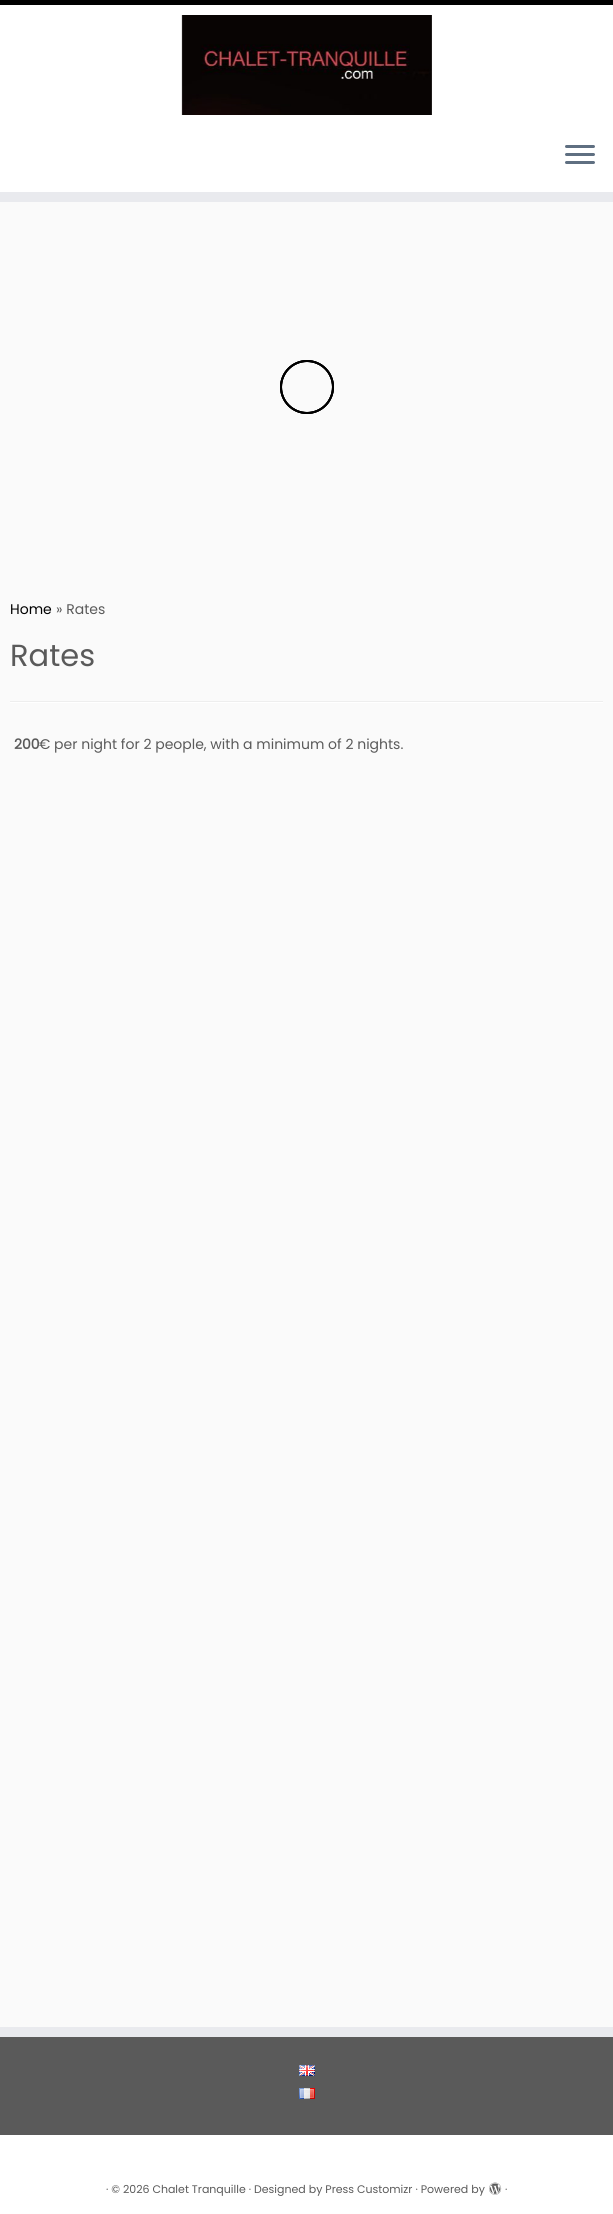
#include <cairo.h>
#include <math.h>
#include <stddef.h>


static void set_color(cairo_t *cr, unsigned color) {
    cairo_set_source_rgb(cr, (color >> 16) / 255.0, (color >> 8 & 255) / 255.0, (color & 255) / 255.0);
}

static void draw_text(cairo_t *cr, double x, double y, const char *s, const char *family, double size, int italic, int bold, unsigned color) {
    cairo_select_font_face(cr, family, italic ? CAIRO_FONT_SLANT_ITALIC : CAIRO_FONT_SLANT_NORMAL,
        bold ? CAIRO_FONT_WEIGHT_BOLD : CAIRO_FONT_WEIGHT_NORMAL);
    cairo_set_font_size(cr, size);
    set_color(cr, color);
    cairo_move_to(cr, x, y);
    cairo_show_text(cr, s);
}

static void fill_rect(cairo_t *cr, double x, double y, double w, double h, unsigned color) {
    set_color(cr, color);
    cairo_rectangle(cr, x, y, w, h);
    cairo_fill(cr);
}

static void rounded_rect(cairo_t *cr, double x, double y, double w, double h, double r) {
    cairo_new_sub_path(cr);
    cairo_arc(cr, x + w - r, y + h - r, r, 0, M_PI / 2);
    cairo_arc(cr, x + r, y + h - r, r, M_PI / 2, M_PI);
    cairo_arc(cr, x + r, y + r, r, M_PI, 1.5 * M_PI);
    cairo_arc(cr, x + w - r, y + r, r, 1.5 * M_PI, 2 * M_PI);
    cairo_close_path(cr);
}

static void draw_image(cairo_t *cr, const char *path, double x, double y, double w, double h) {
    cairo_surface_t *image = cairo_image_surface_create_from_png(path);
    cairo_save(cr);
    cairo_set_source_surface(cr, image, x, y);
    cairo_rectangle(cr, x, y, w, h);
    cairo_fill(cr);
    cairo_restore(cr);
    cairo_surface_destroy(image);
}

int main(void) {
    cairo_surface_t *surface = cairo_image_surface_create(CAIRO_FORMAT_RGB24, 613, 2214);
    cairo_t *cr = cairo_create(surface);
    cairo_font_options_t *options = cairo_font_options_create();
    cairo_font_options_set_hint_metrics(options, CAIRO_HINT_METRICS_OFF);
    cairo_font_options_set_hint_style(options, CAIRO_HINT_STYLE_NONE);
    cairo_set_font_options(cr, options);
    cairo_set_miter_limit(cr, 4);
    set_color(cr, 0xFAFAFA);
    cairo_paint(cr);
    fill_rect(cr, 0, 5, 613, 187, 0xFFFFFF);
    fill_rect(cr, 0, 0, 613, 5, 0x000000);
    fill_rect(cr, 0, 192, 613, 10, 0xE9EAEE);
    draw_image(cr, "assets/img1.png", 181, 15, 251, 100);
    set_color(cr, 0x5F6F81);
    rounded_rect(cr, 565, 145, 30, 3, 1.5);
    cairo_fill(cr);
    rounded_rect(cr, 565, 153, 30, 3, 1.5);
    cairo_fill(cr);
    rounded_rect(cr, 565, 161, 30, 3, 1.5);
    cairo_fill(cr);
    cairo_arc(cr, 307, 387, 26, 0, 2 * M_PI);
    set_color(cr, 0x000000);
    cairo_stroke(cr);
    cairo_arc(cr, 307, 387, 26, 0, 2 * M_PI);
    cairo_stroke(cr);
    cairo_arc(cr, 307, 387, 26, 0, 2 * M_PI);
    cairo_stroke(cr);
    draw_text(cr, 10, 614, "Home", "Poppins", 14, 0, 0, 0x000000);
    draw_text(cr, 56, 614, "» Rates", "Poppins", 14, 0, 0, 0x5A5A5A);
    draw_text(cr, 10, 666, "Rates", "Poppins", 30.5, 0, 0, 0x5A5A5A);
    fill_rect(cr, 10, 701, 593, 1, 0xEEEEEE);
    fill_rect(cr, 10, 702, 593, 1, 0xFFFFFF);
    draw_text(cr, 14, 749, "200", "Poppins", 14, 0, 1, 0x5A5A5A);
    draw_text(cr, 39, 749, "€ per night for 2 people, with a minimum of 2 nights.", "Poppins", 14, 0, 0, 0x5A5A5A);
    fill_rect(cr, 0, 2037, 613, 98, 0x5A5A5A);
    fill_rect(cr, 0, 2027, 613, 10, 0xE9EAEE);
    draw_image(cr, "assets/img2.png", 299, 2065, 16, 11);
    draw_image(cr, "assets/img3.png", 299, 2088, 16, 11);
    fill_rect(cr, 0, 2135, 613, 79, 0xFFFFFF);
    draw_text(cr, 106, 2193, "· © 2026 Chalet Tranquille · Designed by Press Customizr · Powered by", "Poppins", 11, 0, 0, 0x5A5A5A);
    draw_image(cr, "assets/img4.png", 489, 2182, 13, 13);
    draw_text(cr, 505, 2193, "·", "Poppins", 11, 0, 0, 0x5A5A5A);
    cairo_surface_write_to_png(surface, "output.png");
    cairo_font_options_destroy(options);
    cairo_destroy(cr);
    cairo_surface_destroy(surface);
    return 0;
}
